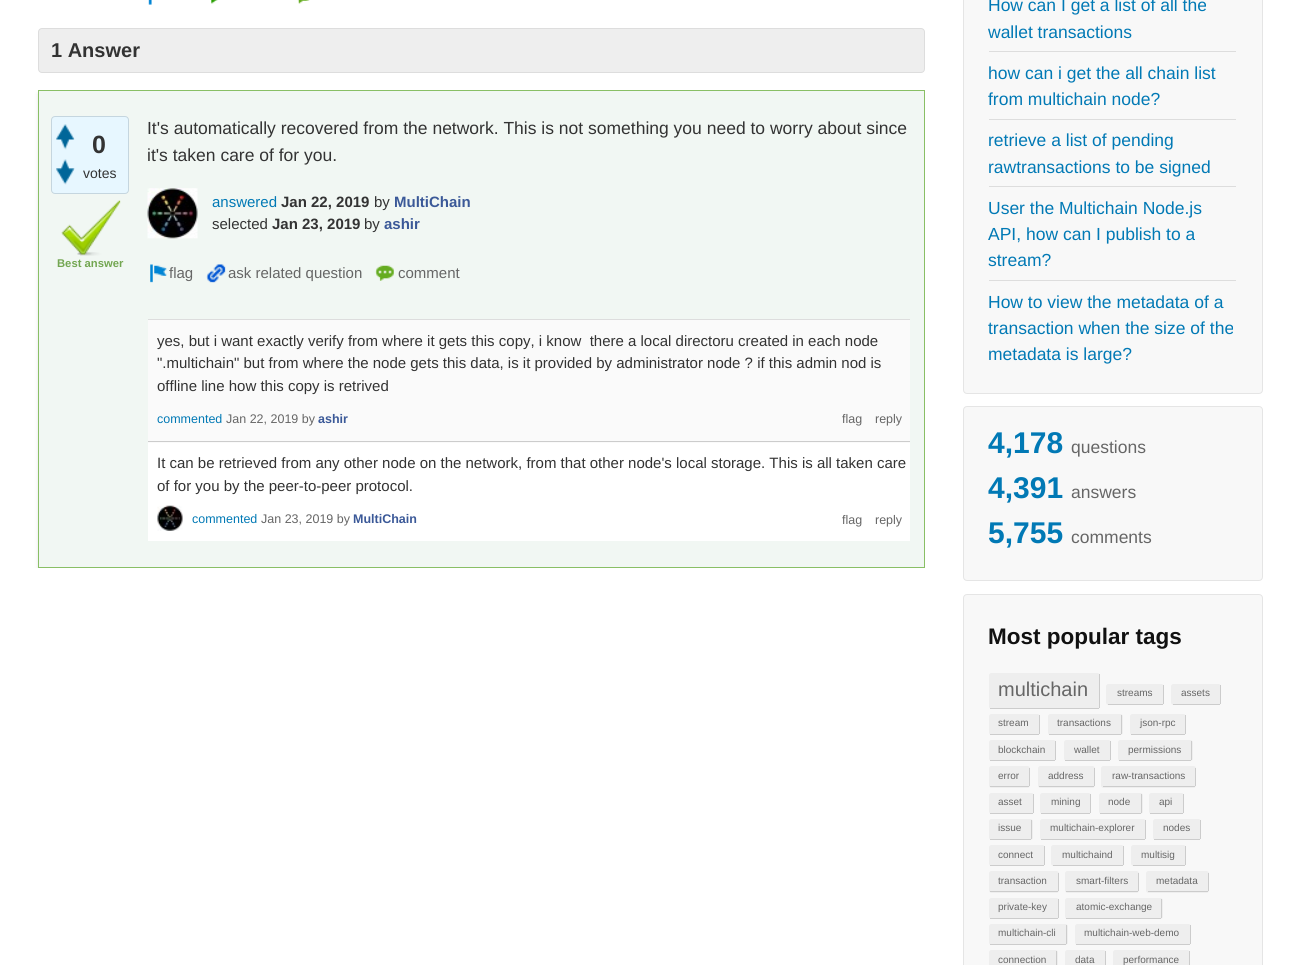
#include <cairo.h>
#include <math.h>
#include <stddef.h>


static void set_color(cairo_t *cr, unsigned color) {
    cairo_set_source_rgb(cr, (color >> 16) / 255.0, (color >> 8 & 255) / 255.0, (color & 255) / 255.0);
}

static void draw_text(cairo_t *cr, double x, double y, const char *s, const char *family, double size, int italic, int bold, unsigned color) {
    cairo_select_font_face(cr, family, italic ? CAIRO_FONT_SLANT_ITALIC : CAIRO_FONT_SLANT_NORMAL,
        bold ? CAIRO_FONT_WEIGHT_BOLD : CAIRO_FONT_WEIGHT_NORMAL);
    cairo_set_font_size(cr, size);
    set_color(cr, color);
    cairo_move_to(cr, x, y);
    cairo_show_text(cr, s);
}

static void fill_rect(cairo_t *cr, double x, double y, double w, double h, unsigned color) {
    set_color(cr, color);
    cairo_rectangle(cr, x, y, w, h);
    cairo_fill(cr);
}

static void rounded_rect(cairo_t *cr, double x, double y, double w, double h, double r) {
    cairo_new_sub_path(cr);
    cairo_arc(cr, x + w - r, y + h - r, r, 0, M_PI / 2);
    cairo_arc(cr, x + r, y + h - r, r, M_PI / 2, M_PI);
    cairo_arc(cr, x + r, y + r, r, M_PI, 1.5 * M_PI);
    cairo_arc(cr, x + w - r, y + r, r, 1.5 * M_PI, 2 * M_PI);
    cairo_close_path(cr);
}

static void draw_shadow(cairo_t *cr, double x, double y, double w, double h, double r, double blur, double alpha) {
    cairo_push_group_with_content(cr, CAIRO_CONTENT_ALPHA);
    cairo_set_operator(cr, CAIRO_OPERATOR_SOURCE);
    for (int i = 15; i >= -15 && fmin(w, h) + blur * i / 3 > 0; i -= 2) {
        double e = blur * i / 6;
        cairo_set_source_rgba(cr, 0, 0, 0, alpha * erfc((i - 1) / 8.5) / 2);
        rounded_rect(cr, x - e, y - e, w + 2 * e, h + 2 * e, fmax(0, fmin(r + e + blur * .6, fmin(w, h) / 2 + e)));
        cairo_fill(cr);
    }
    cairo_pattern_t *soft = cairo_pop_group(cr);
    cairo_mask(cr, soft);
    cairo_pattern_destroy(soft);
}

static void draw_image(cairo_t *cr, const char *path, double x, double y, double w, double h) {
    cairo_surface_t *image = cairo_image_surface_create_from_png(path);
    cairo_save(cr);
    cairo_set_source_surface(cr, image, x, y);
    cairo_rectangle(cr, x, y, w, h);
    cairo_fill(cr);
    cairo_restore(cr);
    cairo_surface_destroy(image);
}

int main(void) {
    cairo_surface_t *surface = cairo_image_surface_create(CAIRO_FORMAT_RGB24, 1298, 965);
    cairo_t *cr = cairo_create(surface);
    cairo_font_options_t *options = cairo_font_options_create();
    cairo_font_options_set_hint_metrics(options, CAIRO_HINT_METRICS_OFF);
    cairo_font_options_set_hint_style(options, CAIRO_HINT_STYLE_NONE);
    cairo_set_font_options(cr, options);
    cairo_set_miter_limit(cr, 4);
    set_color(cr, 0xFFFFFF);
    cairo_paint(cr);
    draw_image(cr, "assets/img1.png", 148, 0, 4, 5);
    draw_image(cr, "assets/img2.png", 211, 0, 7, 4);
    draw_image(cr, "assets/img3.png", 297, 0, 13, 4);
    set_color(cr, 0xEEEEEE);
    rounded_rect(cr, 38.5, 28.5, 886, 44, 3.5);
    cairo_fill_preserve(cr);
    set_color(cr, 0xDDDDDD);
    cairo_set_line_width(cr, 1);
    cairo_stroke(cr);
    draw_text(cr, 51, 57, "1 Answer", "Liberation Sans", 20, 0, 1, 0x333333);
    cairo_save(cr);
    cairo_rectangle(cr, 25, 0, 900, 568);
    cairo_clip(cr);
    set_color(cr, 0x000000);
    draw_shadow(cr, 38, 94, 887, 477, 0, 2, 0.1);
    cairo_restore(cr);
    set_color(cr, 0xF1F7F3);
    cairo_rectangle(cr, 38.5, 90.5, 886, 477);
    cairo_fill_preserve(cr);
    set_color(cr, 0x89BF65);
    cairo_stroke(cr);
    draw_text(cr, 147, 134, "It's automatically recovered from the network. This is not something you need to worry about since", "Liberation Sans", 17.5, 0, 0, 0x333333);
    draw_text(cr, 147, 161, "it's taken care of for you.", "Liberation Sans", 17.5, 0, 0, 0x333333);
    draw_image(cr, "assets/img4.png", 147, 188, 51, 51);
    draw_text(cr, 212, 207, "answered", "Liberation Sans", 15, 0, 0, 0x0179B5);
    draw_text(cr, 281, 207, "Jan 22, 2019", "Liberation Sans", 15, 0, 1, 0x333333);
    draw_text(cr, 374, 207, "by", "Liberation Sans", 15, 0, 0, 0x333333);
    draw_text(cr, 394, 207, "MultiChain", "Liberation Sans", 15, 0, 1, 0x3B5998);
    draw_text(cr, 212, 229, "selected", "Liberation Sans", 15, 0, 0, 0x333333);
    draw_text(cr, 272, 229, "Jan 23, 2019", "Liberation Sans", 15, 0, 1, 0x333333);
    draw_text(cr, 364, 229, "by", "Liberation Sans", 15, 0, 0, 0x333333);
    draw_text(cr, 384, 229, "ashir", "Liberation Sans", 15, 0, 1, 0x3B5998);
    draw_image(cr, "assets/img5.png", 61, 200, 60, 56);
    draw_text(cr, 57, 267, "Best answer", "Liberation Sans", 11.25, 0, 1, 0x73A651);
    draw_image(cr, "assets/img6.png", 150, 264, 17, 19);
    draw_text(cr, 169, 278, "flag", "Liberation Sans", 15, 0, 0, 0x666666);
    draw_image(cr, "assets/img7.png", 206, 264, 20, 19);
    draw_text(cr, 228, 278, "ask related question", "Liberation Sans", 15, 0, 0, 0x666666);
    draw_image(cr, "assets/img8.png", 375, 265, 19, 16);
    draw_text(cr, 398, 278, "comment", "Liberation Sans", 15, 0, 0, 0x666666);
    fill_rect(cr, 148, 319, 762, 1, 0xDDDDDD);
    fill_rect(cr, 148, 320, 762, 123, 0xFAFAFA);
    fill_rect(cr, 148, 441, 762, 1, 0xCCCCCC);
    draw_text(cr, 157, 346, "yes, but i want exactly verify from where it gets this copy, i know  there a local directoru created in each node", "Liberation Sans", 15, 0, 0, 0x333333);
    draw_text(cr, 157, 368, "\".multichain\" but from where the node gets this data, is it provided by administrator node ? if this admin nod is", "Liberation Sans", 15, 0, 0, 0x333333);
    draw_text(cr, 157, 391, "offline line how this copy is retrived", "Liberation Sans", 15, 0, 0, 0x333333);
    draw_text(cr, 157, 423, "commented", "Liberation Sans", 12.5, 0, 0, 0x0179B5);
    draw_text(cr, 226, 423, "Jan 22, 2019 by", "Liberation Sans", 12.5, 0, 0, 0x666666);
    draw_text(cr, 318, 423, "ashir", "Liberation Sans", 12.5, 0, 1, 0x3B5998);
    draw_text(cr, 842, 423, "flag", "Liberation Sans", 12.5, 0, 0, 0x666666);
    draw_text(cr, 875, 423, "reply", "Liberation Sans", 12.5, 0, 0, 0x666666);
    fill_rect(cr, 148, 443, 762, 98, 0xFFFFFF);
    draw_text(cr, 157, 468, "It can be retrieved from any other node on the network, from that other node's local storage. This is all taken care", "Liberation Sans", 15, 0, 0, 0x333333);
    draw_text(cr, 157, 491, "of for you by the peer-to-peer protocol.", "Liberation Sans", 15, 0, 0, 0x333333);
    draw_image(cr, "assets/img9.png", 157, 505, 26, 26);
    draw_text(cr, 192, 523, "commented", "Liberation Sans", 12.5, 0, 0, 0x0179B5);
    draw_text(cr, 261, 523, "Jan 23, 2019 by", "Liberation Sans", 12.5, 0, 0, 0x666666);
    draw_text(cr, 353, 523, "MultiChain", "Liberation Sans", 12.5, 0, 1, 0x3B5998);
    draw_text(cr, 842, 524, "flag", "Liberation Sans", 12.5, 0, 0, 0x666666);
    draw_text(cr, 875, 524, "reply", "Liberation Sans", 12.5, 0, 0, 0x666666);
    set_color(cr, 0xE7F7FF);
    rounded_rect(cr, 51.5, 116.5, 77, 77, 3.5);
    cairo_fill_preserve(cr);
    set_color(cr, 0xC5D6DF);
    cairo_stroke(cr);
    draw_image(cr, "assets/img10.png", 56, 124, 19, 26);
    draw_image(cr, "assets/img11.png", 56, 159, 19, 26);
    draw_text(cr, 92, 153, "0", "Liberation Sans", 25, 0, 1, 0x333333);
    draw_text(cr, 83, 178, "votes", "Liberation Sans", 14, 0, 0, 0x333333);
    set_color(cr, 0xF8F8F8);
    rounded_rect(cr, 963.5, -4.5, 299, 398, 3.5);
    cairo_fill_preserve(cr);
    set_color(cr, 0xE5E5E5);
    cairo_stroke(cr);
    fill_rect(cr, 989, 51, 247, 1, 0xDDDDDD);
    draw_text(cr, 988, 11, "How can I get a list of all the", "Liberation Sans", 17.5, 0, 0, 0x0179B5);
    draw_text(cr, 988, 38, "wallet transactions", "Liberation Sans", 17.5, 0, 0, 0x0179B5);
    fill_rect(cr, 989, 119, 247, 1, 0xDDDDDD);
    draw_text(cr, 988, 79, "how can i get the all chain list", "Liberation Sans", 17.5, 0, 0, 0x0179B5);
    draw_text(cr, 988, 105, "from multichain node?", "Liberation Sans", 17.5, 0, 0, 0x0179B5);
    fill_rect(cr, 989, 186, 247, 1, 0xDDDDDD);
    draw_text(cr, 988, 146, "retrieve a list of pending", "Liberation Sans", 17.5, 0, 0, 0x0179B5);
    draw_text(cr, 988, 173, "rawtransactions to be signed", "Liberation Sans", 17.5, 0, 0, 0x0179B5);
    fill_rect(cr, 989, 280, 247, 1, 0xDDDDDD);
    draw_text(cr, 988, 214, "User the Multichain Node.js", "Liberation Sans", 17.5, 0, 0, 0x0179B5);
    draw_text(cr, 988, 240, "API, how can I publish to a", "Liberation Sans", 17.5, 0, 0, 0x0179B5);
    draw_text(cr, 988, 266, "stream?", "Liberation Sans", 17.5, 0, 0, 0x0179B5);
    draw_text(cr, 988, 308, "How to view the metadata of a", "Liberation Sans", 17.5, 0, 0, 0x0179B5);
    draw_text(cr, 988, 334, "transaction when the size of the", "Liberation Sans", 17.5, 0, 0, 0x0179B5);
    draw_text(cr, 988, 360, "metadata is large?", "Liberation Sans", 17.5, 0, 0, 0x0179B5);
    set_color(cr, 0xF8F8F8);
    rounded_rect(cr, 963.5, 406.5, 299, 174, 3.5);
    cairo_fill_preserve(cr);
    set_color(cr, 0xE5E5E5);
    cairo_stroke(cr);
    draw_text(cr, 988, 453, "4,178", "Liberation Sans", 30, 0, 1, 0x0179B5);
    draw_text(cr, 1071, 453, "questions", "Liberation Sans", 17.5, 0, 0, 0x666666);
    draw_text(cr, 988, 498, "4,391", "Liberation Sans", 30, 0, 1, 0x0179B5);
    draw_text(cr, 1071, 498, "answers", "Liberation Sans", 17.5, 0, 0, 0x666666);
    draw_text(cr, 988, 543, "5,755", "Liberation Sans", 30, 0, 1, 0x0179B5);
    draw_text(cr, 1071, 543, "comments", "Liberation Sans", 17.5, 0, 0, 0x666666);
    set_color(cr, 0xF8F8F8);
    rounded_rect(cr, 963.5, 594.5, 299, 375, 3.5);
    cairo_fill_preserve(cr);
    set_color(cr, 0xE5E5E5);
    cairo_stroke(cr);
    draw_text(cr, 988, 644, "Most popular tags", "Liberation Sans", 22.5, 0, 1, 0x111111);
    set_color(cr, 0xEEEEEE);
    rounded_rect(cr, 989, 673, 111, 36, 2.5);
    cairo_fill(cr);
    fill_rect(cr, 1099, 674, 1, 34, 0xCCCCCC);
    fill_rect(cr, 990, 708, 109, 1, 0xCCCCCC);
    draw_text(cr, 998, 696, "multichain", "Liberation Sans", 20, 0, 0, 0x666666);
    set_color(cr, 0xEEEEEE);
    rounded_rect(cr, 1106, 684, 58, 21, 2.5);
    cairo_fill(cr);
    fill_rect(cr, 1163, 685, 1, 19, 0xCCCCCC);
    fill_rect(cr, 1108, 704, 55, 1, 0xCCCCCC);
    draw_text(cr, 1117, 696, "streams", "Liberation Sans", 10, 0, 0, 0x666666);
    set_color(cr, 0xEEEEEE);
    rounded_rect(cr, 1171, 684, 50, 21, 2.5);
    cairo_fill(cr);
    fill_rect(cr, 1220, 685, 1, 19, 0xCCCCCC);
    fill_rect(cr, 1173, 704, 47, 1, 0xCCCCCC);
    draw_text(cr, 1181, 696, "assets", "Liberation Sans", 10, 0, 0, 0x666666);
    set_color(cr, 0xEEEEEE);
    rounded_rect(cr, 989, 714, 51, 21, 2.5);
    cairo_fill(cr);
    fill_rect(cr, 1039, 715, 1, 19, 0xCCCCCC);
    fill_rect(cr, 990, 734, 49, 1, 0xCCCCCC);
    draw_text(cr, 998, 726, "stream", "Liberation Sans", 10, 0, 0, 0x666666);
    set_color(cr, 0xEEEEEE);
    rounded_rect(cr, 1048, 714, 75, 21, 2.5);
    cairo_fill(cr);
    fill_rect(cr, 1121, 715, 1, 19, 0xCCCCCC);
    fill_rect(cr, 1049, 734, 72, 1, 0xCCCCCC);
    draw_text(cr, 1057, 726, "transactions", "Liberation Sans", 10, 0, 0, 0x666666);
    set_color(cr, 0xEEEEEE);
    rounded_rect(cr, 1130, 714, 56, 21, 2.5);
    cairo_fill(cr);
    fill_rect(cr, 1185, 715, 1, 19, 0xCCCCCC);
    fill_rect(cr, 1131, 734, 54, 1, 0xCCCCCC);
    draw_text(cr, 1140, 726, "json-rpc", "Liberation Sans", 10, 0, 0, 0x666666);
    set_color(cr, 0xEEEEEE);
    rounded_rect(cr, 989, 740, 67, 21, 2.5);
    cairo_fill(cr);
    fill_rect(cr, 1055, 741, 1, 19, 0xCCCCCC);
    fill_rect(cr, 990, 760, 65, 1, 0xCCCCCC);
    draw_text(cr, 998, 753, "blockchain", "Liberation Sans", 10, 0, 0, 0x666666);
    set_color(cr, 0xEEEEEE);
    rounded_rect(cr, 1064, 740, 47, 21, 2.5);
    cairo_fill(cr);
    fill_rect(cr, 1110, 741, 1, 19, 0xCCCCCC);
    fill_rect(cr, 1065, 760, 45, 1, 0xCCCCCC);
    draw_text(cr, 1074, 753, "wallet", "Liberation Sans", 10, 0, 0, 0x666666);
    set_color(cr, 0xEEEEEE);
    rounded_rect(cr, 1118, 740, 75, 21, 2.5);
    cairo_fill(cr);
    fill_rect(cr, 1191, 741, 1, 19, 0xCCCCCC);
    fill_rect(cr, 1119, 760, 72, 1, 0xCCCCCC);
    draw_text(cr, 1128, 753, "permissions", "Liberation Sans", 10, 0, 0, 0x666666);
    set_color(cr, 0xEEEEEE);
    rounded_rect(cr, 989, 766, 41, 22, 2.5);
    cairo_fill(cr);
    fill_rect(cr, 1029, 768, 1, 18, 0xCCCCCC);
    fill_rect(cr, 990, 786, 39, 1, 0xCCCCCC);
    draw_text(cr, 998, 779, "error", "Liberation Sans", 10, 0, 0, 0x666666);
    set_color(cr, 0xEEEEEE);
    rounded_rect(cr, 1038, 766, 57, 22, 2.5);
    cairo_fill(cr);
    fill_rect(cr, 1094, 768, 1, 18, 0xCCCCCC);
    fill_rect(cr, 1039, 786, 55, 1, 0xCCCCCC);
    draw_text(cr, 1048, 779, "address", "Liberation Sans", 10, 0, 0, 0x666666);
    set_color(cr, 0xEEEEEE);
    rounded_rect(cr, 1101, 766, 95, 22, 2.5);
    cairo_fill(cr);
    fill_rect(cr, 1195, 768, 1, 18, 0xCCCCCC);
    fill_rect(cr, 1103, 786, 92, 1, 0xCCCCCC);
    draw_text(cr, 1112, 779, "raw-transactions", "Liberation Sans", 10, 0, 0, 0x666666);
    set_color(cr, 0xEEEEEE);
    rounded_rect(cr, 989, 793, 45, 21, 2.5);
    cairo_fill(cr);
    fill_rect(cr, 1033, 794, 1, 19, 0xCCCCCC);
    fill_rect(cr, 990, 813, 43, 1, 0xCCCCCC);
    draw_text(cr, 998, 805, "asset", "Liberation Sans", 10, 0, 0, 0x666666);
    set_color(cr, 0xEEEEEE);
    rounded_rect(cr, 1040, 793, 51, 21, 2.5);
    cairo_fill(cr);
    fill_rect(cr, 1090, 794, 1, 19, 0xCCCCCC);
    fill_rect(cr, 1041, 813, 49, 1, 0xCCCCCC);
    draw_text(cr, 1051, 805, "mining", "Liberation Sans", 10, 0, 0, 0x666666);
    set_color(cr, 0xEEEEEE);
    rounded_rect(cr, 1099, 793, 44, 21, 2.5);
    cairo_fill(cr);
    fill_rect(cr, 1141, 794, 1, 19, 0xCCCCCC);
    fill_rect(cr, 1100, 813, 41, 1, 0xCCCCCC);
    draw_text(cr, 1108, 805, "node", "Liberation Sans", 10, 0, 0, 0x666666);
    set_color(cr, 0xEEEEEE);
    rounded_rect(cr, 1149, 793, 35, 21, 2.5);
    cairo_fill(cr);
    fill_rect(cr, 1183, 794, 1, 19, 0xCCCCCC);
    fill_rect(cr, 1150, 813, 33, 1, 0xCCCCCC);
    draw_text(cr, 1159, 805, "api", "Liberation Sans", 10, 0, 0, 0x666666);
    set_color(cr, 0xEEEEEE);
    rounded_rect(cr, 989, 819, 44, 21, 2.5);
    cairo_fill(cr);
    fill_rect(cr, 1031, 820, 1, 19, 0xCCCCCC);
    fill_rect(cr, 990, 839, 41, 1, 0xCCCCCC);
    draw_text(cr, 998, 831, "issue", "Liberation Sans", 10, 0, 0, 0x666666);
    set_color(cr, 0xEEEEEE);
    rounded_rect(cr, 1040, 819, 106, 21, 2.5);
    cairo_fill(cr);
    fill_rect(cr, 1145, 820, 1, 19, 0xCCCCCC);
    fill_rect(cr, 1041, 839, 104, 1, 0xCCCCCC);
    draw_text(cr, 1050, 831, "multichain-explorer", "Liberation Sans", 10, 0, 0, 0x666666);
    set_color(cr, 0xEEEEEE);
    rounded_rect(cr, 1153, 819, 48, 21, 2.5);
    cairo_fill(cr);
    fill_rect(cr, 1200, 820, 1, 19, 0xCCCCCC);
    fill_rect(cr, 1154, 839, 46, 1, 0xCCCCCC);
    draw_text(cr, 1163, 831, "nodes", "Liberation Sans", 10, 0, 0, 0x666666);
    set_color(cr, 0xEEEEEE);
    rounded_rect(cr, 989, 845, 56, 21, 2.5);
    cairo_fill(cr);
    fill_rect(cr, 1044, 846, 1, 19, 0xCCCCCC);
    fill_rect(cr, 990, 865, 54, 1, 0xCCCCCC);
    draw_text(cr, 998, 858, "connect", "Liberation Sans", 10, 0, 0, 0x666666);
    set_color(cr, 0xEEEEEE);
    rounded_rect(cr, 1051, 845, 73, 21, 2.5);
    cairo_fill(cr);
    fill_rect(cr, 1123, 846, 1, 19, 0xCCCCCC);
    fill_rect(cr, 1053, 865, 70, 1, 0xCCCCCC);
    draw_text(cr, 1062, 858, "multichaind", "Liberation Sans", 10, 0, 0, 0x666666);
    set_color(cr, 0xEEEEEE);
    rounded_rect(cr, 1131, 845, 55, 21, 2.5);
    cairo_fill(cr);
    fill_rect(cr, 1185, 846, 1, 19, 0xCCCCCC);
    fill_rect(cr, 1133, 865, 52, 1, 0xCCCCCC);
    draw_text(cr, 1141, 858, "multisig", "Liberation Sans", 10, 0, 0, 0x666666);
    set_color(cr, 0xEEEEEE);
    rounded_rect(cr, 989, 871, 70, 22, 2.5);
    cairo_fill(cr);
    fill_rect(cr, 1058, 873, 1, 18, 0xCCCCCC);
    fill_rect(cr, 990, 891, 68, 1, 0xCCCCCC);
    draw_text(cr, 998, 884, "transaction", "Liberation Sans", 10, 0, 0, 0x666666);
    set_color(cr, 0xEEEEEE);
    rounded_rect(cr, 1065, 871, 74, 22, 2.5);
    cairo_fill(cr);
    fill_rect(cr, 1138, 873, 1, 18, 0xCCCCCC);
    fill_rect(cr, 1066, 891, 72, 1, 0xCCCCCC);
    draw_text(cr, 1076, 884, "smart-filters", "Liberation Sans", 10, 0, 0, 0x666666);
    set_color(cr, 0xEEEEEE);
    rounded_rect(cr, 1146, 871, 63, 22, 2.5);
    cairo_fill(cr);
    fill_rect(cr, 1208, 873, 1, 18, 0xCCCCCC);
    fill_rect(cr, 1148, 891, 60, 1, 0xCCCCCC);
    draw_text(cr, 1156, 884, "metadata", "Liberation Sans", 10, 0, 0, 0x666666);
    set_color(cr, 0xEEEEEE);
    rounded_rect(cr, 989, 898, 70, 21, 2.5);
    cairo_fill(cr);
    fill_rect(cr, 1058, 899, 1, 19, 0xCCCCCC);
    fill_rect(cr, 990, 918, 68, 1, 0xCCCCCC);
    draw_text(cr, 998, 910, "private-key", "Liberation Sans", 10, 0, 0, 0x666666);
    set_color(cr, 0xEEEEEE);
    rounded_rect(cr, 1065, 898, 98, 21, 2.5);
    cairo_fill(cr);
    fill_rect(cr, 1161, 899, 1, 19, 0xCCCCCC);
    fill_rect(cr, 1066, 918, 95, 1, 0xCCCCCC);
    draw_text(cr, 1076, 910, "atomic-exchange", "Liberation Sans", 10, 0, 0, 0x666666);
    set_color(cr, 0xEEEEEE);
    rounded_rect(cr, 989, 924, 79, 21, 2.5);
    cairo_fill(cr);
    fill_rect(cr, 1066, 925, 1, 19, 0xCCCCCC);
    fill_rect(cr, 990, 944, 76, 1, 0xCCCCCC);
    draw_text(cr, 998, 936, "multichain-cli", "Liberation Sans", 10, 0, 0, 0x666666);
    set_color(cr, 0xEEEEEE);
    rounded_rect(cr, 1075, 924, 116, 21, 2.5);
    cairo_fill(cr);
    fill_rect(cr, 1190, 925, 1, 19, 0xCCCCCC);
    fill_rect(cr, 1076, 944, 114, 1, 0xCCCCCC);
    draw_text(cr, 1084, 936, "multichain-web-demo", "Liberation Sans", 10, 0, 0, 0x666666);
    set_color(cr, 0xEEEEEE);
    rounded_rect(cr, 989, 950, 69, 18, 2.5);
    cairo_fill(cr);
    fill_rect(cr, 1056, 951, 1, 14, 0xCCCCCC);
    draw_text(cr, 998, 963, "connection", "Liberation Sans", 10, 0, 0, 0x666666);
    set_color(cr, 0xEEEEEE);
    rounded_rect(cr, 1065, 950, 41, 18, 2.5);
    cairo_fill(cr);
    fill_rect(cr, 1105, 951, 1, 14, 0xCCCCCC);
    draw_text(cr, 1075, 963, "data", "Liberation Sans", 10, 0, 0, 0x666666);
    set_color(cr, 0xEEEEEE);
    rounded_rect(cr, 1113, 950, 77, 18, 2.5);
    cairo_fill(cr);
    fill_rect(cr, 1189, 951, 1, 14, 0xCCCCCC);
    draw_text(cr, 1123, 963, "performance", "Liberation Sans", 10, 0, 0, 0x666666);
    cairo_surface_write_to_png(surface, "output.png");
    cairo_font_options_destroy(options);
    cairo_destroy(cr);
    cairo_surface_destroy(surface);
    return 0;
}
